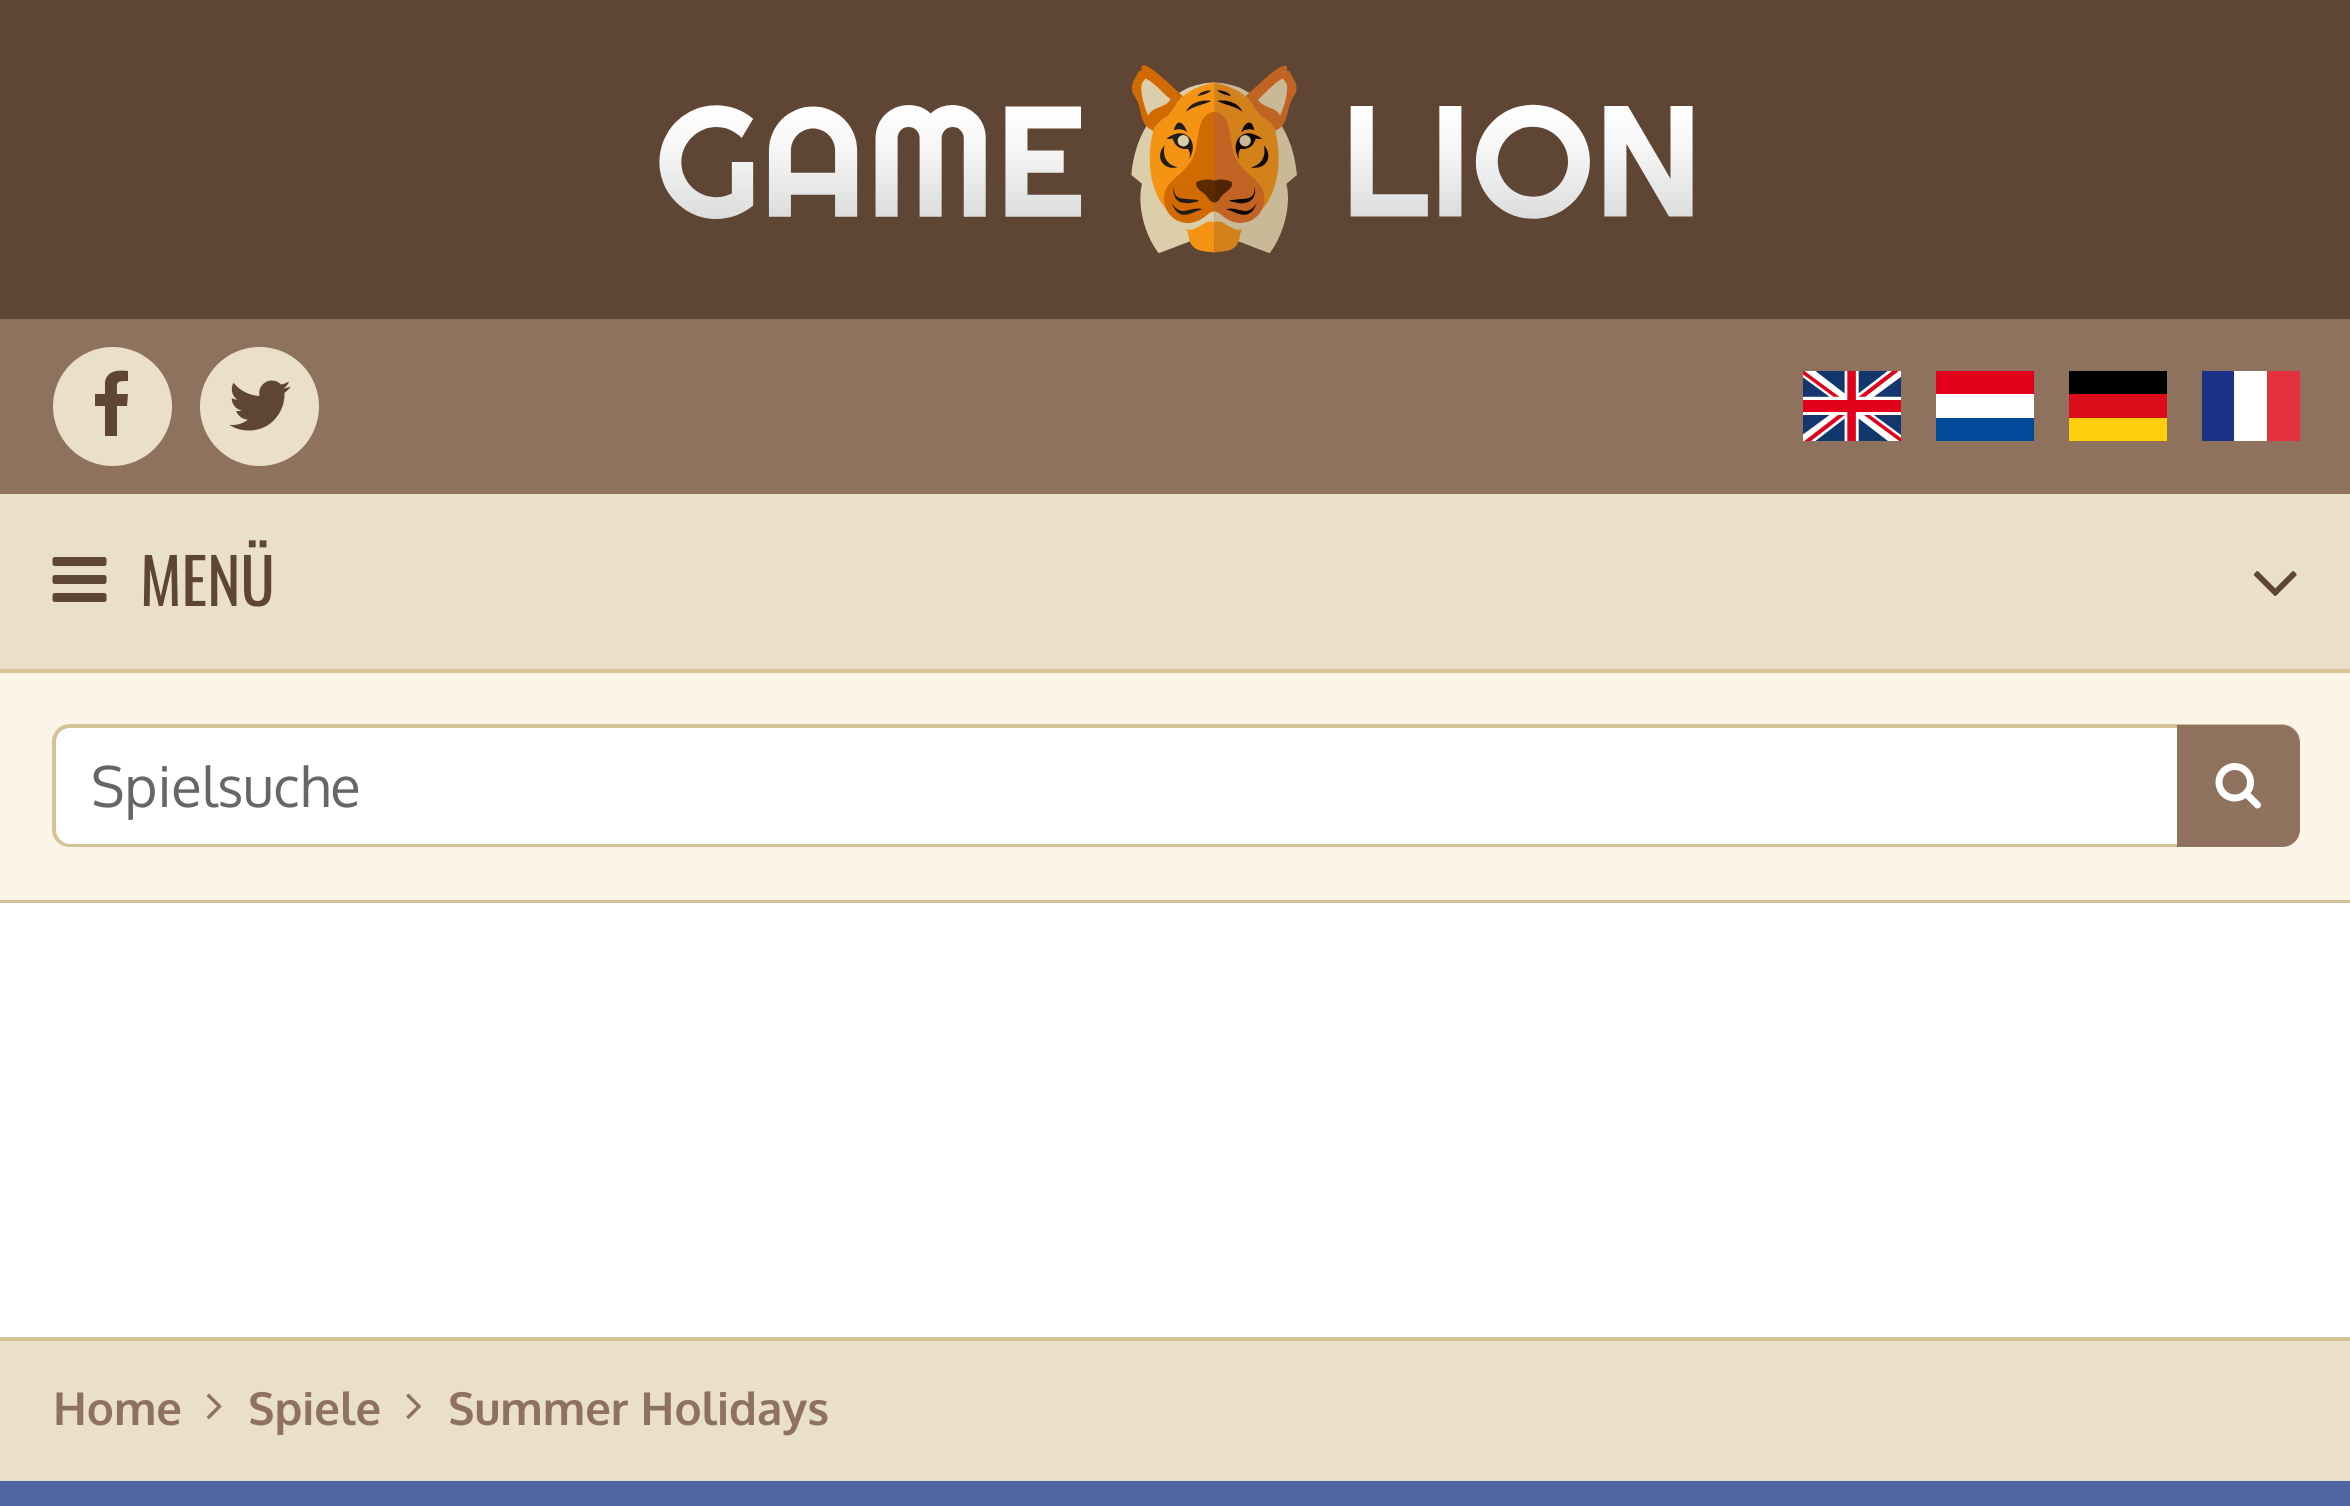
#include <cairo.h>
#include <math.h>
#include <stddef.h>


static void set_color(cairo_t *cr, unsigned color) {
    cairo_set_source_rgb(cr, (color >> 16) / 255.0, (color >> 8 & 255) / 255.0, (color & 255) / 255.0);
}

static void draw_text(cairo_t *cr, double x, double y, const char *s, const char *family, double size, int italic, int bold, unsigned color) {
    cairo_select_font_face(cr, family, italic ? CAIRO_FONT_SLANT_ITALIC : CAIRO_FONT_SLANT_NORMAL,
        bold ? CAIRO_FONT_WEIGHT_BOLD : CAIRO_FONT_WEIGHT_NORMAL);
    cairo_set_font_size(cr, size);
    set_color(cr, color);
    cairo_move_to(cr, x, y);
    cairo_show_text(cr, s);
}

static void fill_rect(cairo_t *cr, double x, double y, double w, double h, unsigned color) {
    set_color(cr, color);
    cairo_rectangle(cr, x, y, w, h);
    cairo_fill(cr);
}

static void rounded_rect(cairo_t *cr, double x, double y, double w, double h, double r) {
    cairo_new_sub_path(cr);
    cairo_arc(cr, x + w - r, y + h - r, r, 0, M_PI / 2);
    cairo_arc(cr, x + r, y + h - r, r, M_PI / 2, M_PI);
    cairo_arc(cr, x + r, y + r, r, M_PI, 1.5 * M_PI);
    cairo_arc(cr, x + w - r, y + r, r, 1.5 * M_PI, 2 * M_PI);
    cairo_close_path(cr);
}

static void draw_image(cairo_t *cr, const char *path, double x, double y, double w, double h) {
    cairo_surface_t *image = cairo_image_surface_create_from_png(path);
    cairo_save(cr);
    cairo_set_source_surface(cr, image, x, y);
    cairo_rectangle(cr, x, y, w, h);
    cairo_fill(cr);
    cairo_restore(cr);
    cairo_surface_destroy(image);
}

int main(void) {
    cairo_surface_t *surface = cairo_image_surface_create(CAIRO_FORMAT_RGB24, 2350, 1506);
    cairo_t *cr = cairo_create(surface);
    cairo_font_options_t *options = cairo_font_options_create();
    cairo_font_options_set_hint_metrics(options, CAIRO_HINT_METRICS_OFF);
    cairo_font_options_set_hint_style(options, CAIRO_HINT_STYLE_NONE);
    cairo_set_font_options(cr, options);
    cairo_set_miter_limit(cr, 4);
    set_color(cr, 0x5E4534);
    cairo_paint(cr);
    draw_image(cr, "assets/img1.png", 659, 65, 1034, 189);
    fill_rect(cr, 0, 319, 2350, 175, 0x8E725E);
    set_color(cr, 0xEAE0CA);
    cairo_arc(cr, 112.5, 406.5, 59.5, 0, 2 * M_PI);
    cairo_fill(cr);
    set_color(cr, 0x5E4534);
    cairo_new_path(cr);
    cairo_move_to(cr, 128, 371);
    cairo_line_to(cr, 128, 381);
    cairo_curve_to(cr, 115, 381, 117, 382, 117, 394);
    cairo_line_to(cr, 128, 394);
    cairo_line_to(cr, 127, 406);
    cairo_line_to(cr, 117, 406);
    cairo_line_to(cr, 117, 436);
    cairo_line_to(cr, 105, 436);
    cairo_line_to(cr, 105, 406);
    cairo_line_to(cr, 95, 406);
    cairo_line_to(cr, 95, 394);
    cairo_line_to(cr, 105, 394);
    cairo_line_to(cr, 105, 382);
    cairo_curve_to(cr, 107, 370, 119, 370, 128, 371);
    cairo_close_path(cr);
    cairo_fill(cr);
    set_color(cr, 0xEAE0CA);
    cairo_arc(cr, 259.5, 406.5, 59.5, 0, 2 * M_PI);
    cairo_fill(cr);
    draw_image(cr, "assets/img2.png", 229, 380, 62, 51);
    draw_image(cr, "assets/img3.png", 1803, 371, 98, 70);
    fill_rect(cr, 1936, 418, 98, 23, 0x004A99);
    fill_rect(cr, 1936, 394, 98, 24, 0xFFFFFF);
    fill_rect(cr, 1936, 371, 98, 23, 0xE2001A);
    fill_rect(cr, 2069, 371, 98, 23, 0x000000);
    fill_rect(cr, 2069, 394, 98, 24, 0xDC0C1B);
    fill_rect(cr, 2069, 418, 98, 23, 0xFFCF0D);
    fill_rect(cr, 2267, 371, 33, 70, 0xE5313D);
    fill_rect(cr, 2234, 371, 33, 70, 0xFFFFFF);
    fill_rect(cr, 2202, 371, 32, 70, 0x1A3187);
    fill_rect(cr, 0, 494, 2350, 175, 0xEAE0CA);
    fill_rect(cr, 0, 669, 2350, 4, 0xD5C295);
    draw_image(cr, "assets/img4.png", 52, 557, 55, 45);
    draw_text(cr, 140, 606, "MENÜ", "Oswald", 63, 0, 0, 0x5E4534);
    draw_image(cr, "assets/img5.png", 2253, 571, 44, 25);
    fill_rect(cr, 0, 673, 2350, 227, 0xFBF5E9);
    fill_rect(cr, 0, 900, 2350, 3, 0xD5C295);
    set_color(cr, 0xFFFFFF);
    rounded_rect(cr, 53, 725, 2247, 122, 18);
    cairo_fill(cr);
    set_color(cr, 0xD5C295);
    cairo_set_fill_rule(cr, CAIRO_FILL_RULE_EVEN_ODD);
    cairo_new_path(cr);
    cairo_move_to(cr, 70, 724);
    cairo_line_to(cr, 2282, 724);
    cairo_curve_to(cr, 2292, 724, 2300, 732, 2300, 742);
    cairo_line_to(cr, 2300, 830);
    cairo_curve_to(cr, 2300, 839, 2292, 847, 2282, 847);
    cairo_line_to(cr, 70, 847);
    cairo_curve_to(cr, 60, 847, 52, 839, 52, 830);
    cairo_line_to(cr, 52, 742);
    cairo_curve_to(cr, 52, 732, 60, 724, 70, 724);
    cairo_close_path(cr);
    cairo_move_to(cr, 70, 728);
    cairo_line_to(cr, 2282, 728);
    cairo_curve_to(cr, 2292, 728, 2300, 734, 2300, 742);
    cairo_line_to(cr, 2300, 830);
    cairo_curve_to(cr, 2300, 837, 2292, 844, 2282, 844);
    cairo_line_to(cr, 70, 844);
    cairo_curve_to(cr, 62, 844, 56, 837, 56, 830);
    cairo_line_to(cr, 56, 742);
    cairo_curve_to(cr, 56, 734, 62, 728, 70, 728);
    cairo_close_path(cr);
    cairo_fill(cr);
    draw_text(cr, 91, 807, "Spielsuche", "Oxygen", 56, 0, 0, 0x666666);
    set_color(cr, 0x8E725E);
    cairo_new_path(cr);
    cairo_move_to(cr, 2177, 725);
    cairo_line_to(cr, 2282, 725);
    cairo_curve_to(cr, 2292, 725, 2300, 733, 2300, 743);
    cairo_line_to(cr, 2300, 829);
    cairo_curve_to(cr, 2300, 839, 2292, 847, 2282, 847);
    cairo_line_to(cr, 2177, 847);
    cairo_close_path(cr);
    cairo_fill(cr);
    draw_image(cr, "assets/img6.png", 2215, 763, 46, 46);
    fill_rect(cr, 0, 903, 2350, 434, 0xFFFFFF);
    fill_rect(cr, 0, 1337, 2350, 4, 0xD5C295);
    fill_rect(cr, 0, 1341, 2350, 140, 0xEAE0CA);
    draw_text(cr, 53, 1425, "Home", "Oxygen", 45.5, 0, 1, 0x8E725E);
    draw_image(cr, "assets/img7.png", 206, 1393, 16, 26);
    draw_text(cr, 248, 1425, "Spiele", "Oxygen", 45.5, 0, 1, 0x8E725E);
    draw_image(cr, "assets/img8.png", 406, 1393, 15, 26);
    draw_text(cr, 448, 1425, "Summer Holidays", "Oxygen", 45.5, 0, 1, 0x8E725E);
    fill_rect(cr, 0, 1481, 2350, 25, 0x5065A1);
    cairo_surface_write_to_png(surface, "output.png");
    cairo_font_options_destroy(options);
    cairo_destroy(cr);
    cairo_surface_destroy(surface);
    return 0;
}
